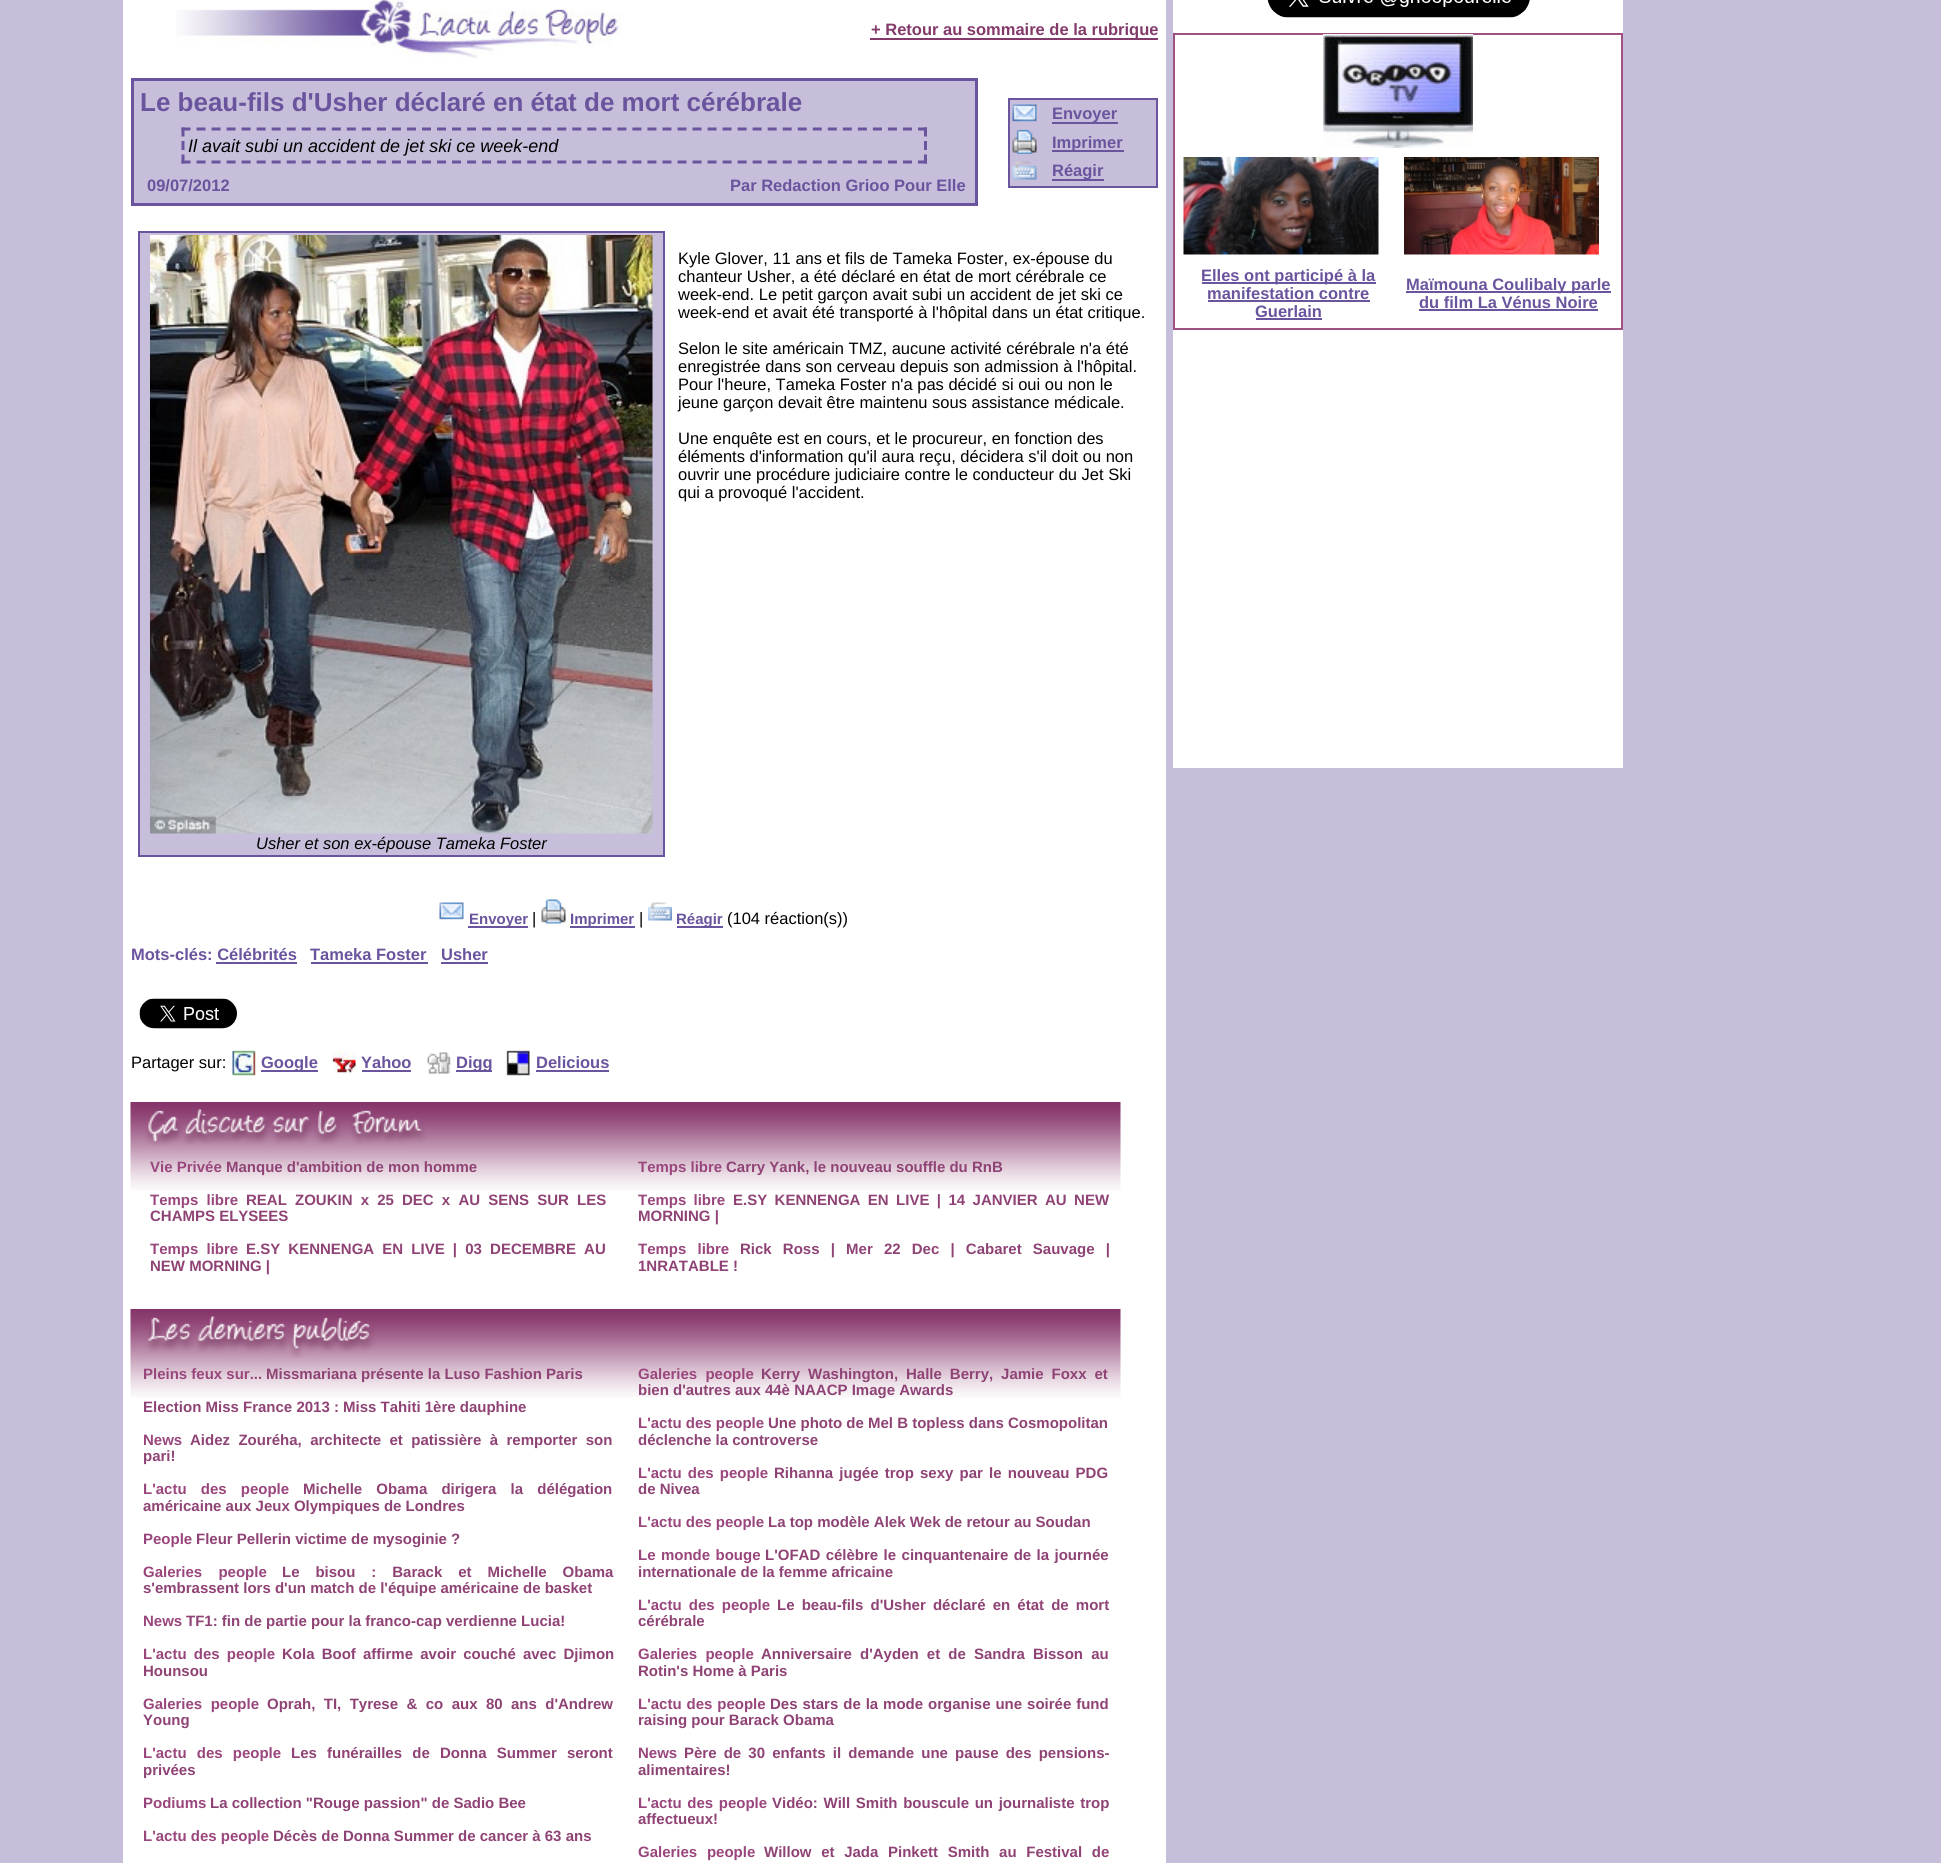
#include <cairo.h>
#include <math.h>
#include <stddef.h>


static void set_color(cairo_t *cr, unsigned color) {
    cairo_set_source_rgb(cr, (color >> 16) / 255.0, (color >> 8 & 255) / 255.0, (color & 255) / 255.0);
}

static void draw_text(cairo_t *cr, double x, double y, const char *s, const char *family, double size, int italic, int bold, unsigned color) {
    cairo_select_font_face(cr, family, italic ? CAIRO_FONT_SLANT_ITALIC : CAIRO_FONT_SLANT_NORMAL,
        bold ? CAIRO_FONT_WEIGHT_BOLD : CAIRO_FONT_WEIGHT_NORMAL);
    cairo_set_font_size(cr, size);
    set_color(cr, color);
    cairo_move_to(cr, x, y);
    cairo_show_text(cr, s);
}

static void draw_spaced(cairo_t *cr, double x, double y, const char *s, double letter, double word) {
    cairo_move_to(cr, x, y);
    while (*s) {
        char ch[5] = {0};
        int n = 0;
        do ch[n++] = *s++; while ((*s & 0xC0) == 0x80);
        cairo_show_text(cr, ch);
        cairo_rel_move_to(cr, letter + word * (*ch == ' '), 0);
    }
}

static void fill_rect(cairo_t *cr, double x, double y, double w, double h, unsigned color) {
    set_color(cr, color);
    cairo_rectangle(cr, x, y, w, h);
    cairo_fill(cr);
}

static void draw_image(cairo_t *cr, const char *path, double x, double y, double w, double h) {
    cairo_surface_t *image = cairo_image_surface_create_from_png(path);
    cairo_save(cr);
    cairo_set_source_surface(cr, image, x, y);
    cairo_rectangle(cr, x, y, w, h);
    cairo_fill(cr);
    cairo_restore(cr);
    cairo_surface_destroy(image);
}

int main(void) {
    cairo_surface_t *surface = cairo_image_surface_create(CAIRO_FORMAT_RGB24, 1941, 1863);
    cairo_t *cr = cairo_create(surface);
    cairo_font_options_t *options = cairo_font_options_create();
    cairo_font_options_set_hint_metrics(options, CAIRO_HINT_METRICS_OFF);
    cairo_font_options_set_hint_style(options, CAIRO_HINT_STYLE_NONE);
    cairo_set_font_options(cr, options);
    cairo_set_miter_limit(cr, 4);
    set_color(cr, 0xC7BEDB);
    cairo_paint(cr);
    fill_rect(cr, 123, 0, 1043, 1863, 0xFFFFFF);
    draw_image(cr, "assets/img1.png", 176, 0, 446, 58);
    fill_rect(cr, 870, 38, 288, 2, 0x833A6A);
    draw_text(cr, 871, 35, "+ Retour au sommaire de la rubrique", "Liberation Sans", 16.5, 0, 1, 0x833A6A);
    set_color(cr, 0xC7BEDB);
    cairo_rectangle(cr, 132.5, 79.5, 844, 125);
    cairo_fill_preserve(cr);
    set_color(cr, 0x6A549D);
    cairo_set_line_width(cr, 3);
    cairo_stroke(cr);
    draw_text(cr, 140, 111, "Le beau-fils d'Usher déclaré en état de mort cérébrale", "Liberation Sans", 26, 0, 1, 0x6A549D);
    cairo_new_path(cr);
    cairo_move_to(cr, 181.5, 129);
    cairo_line_to(cr, 927, 129);
    cairo_set_dash(cr, (double[]){9, 6.03}, 2, 0);
    cairo_stroke(cr);
    cairo_new_path(cr);
    cairo_move_to(cr, 925.5, 127.5);
    cairo_line_to(cr, 925.5, 136.5);
    cairo_move_to(cr, 925.5, 141);
    cairo_line_to(cr, 925.5, 150);
    cairo_move_to(cr, 925.5, 154.5);
    cairo_line_to(cr, 925.5, 163.5);
    cairo_set_dash(cr, NULL, 0, 0);
    cairo_stroke(cr);
    cairo_new_path(cr);
    cairo_move_to(cr, 181.5, 162);
    cairo_line_to(cr, 927, 162);
    cairo_set_dash(cr, (double[]){9, 6.03}, 2, 0);
    cairo_stroke(cr);
    cairo_new_path(cr);
    cairo_move_to(cr, 183, 127.5);
    cairo_line_to(cr, 183, 136.5);
    cairo_move_to(cr, 183, 141);
    cairo_line_to(cr, 183, 150);
    cairo_move_to(cr, 183, 154.5);
    cairo_line_to(cr, 183, 163.5);
    cairo_set_dash(cr, NULL, 0, 0);
    cairo_stroke(cr);
    draw_text(cr, 188, 152, "Il avait subi un accident de jet ski ce week-end", "Liberation Sans", 18, 1, 0, 0x000000);
    draw_text(cr, 147, 191, "09/07/2012", "Liberation Sans", 16.5, 0, 1, 0x6A549D);
    draw_text(cr, 730, 191, "Par Redaction Grioo Pour Elle", "Liberation Sans", 16.5, 0, 1, 0x6A549D);
    set_color(cr, 0xC7BEDB);
    cairo_rectangle(cr, 1009, 99, 148, 88);
    cairo_fill_preserve(cr);
    set_color(cr, 0x6A549D);
    cairo_set_line_width(cr, 2);
    cairo_stroke(cr);
    draw_image(cr, "assets/img2.png", 1012, 104, 25, 18);
    fill_rect(cr, 1052, 122, 66, 2, 0x6A549D);
    draw_text(cr, 1052, 119, "Envoyer", "Liberation Sans", 16.5, 0, 1, 0x6A549D);
    draw_image(cr, "assets/img3.png", 1012, 130, 25, 24);
    fill_rect(cr, 1052, 150, 72, 2, 0x6A549D);
    draw_text(cr, 1052, 148, "Imprimer", "Liberation Sans", 16.5, 0, 1, 0x6A549D);
    draw_image(cr, "assets/img4.png", 1012, 161, 25, 19);
    fill_rect(cr, 1052, 179, 52, 2, 0x6A549D);
    draw_text(cr, 1052, 176, "Réagir", "Liberation Sans", 16.5, 0, 1, 0x6A549D);
    draw_text(cr, 678, 264, "Kyle Glover, 11 ans et fils de Tameka Foster, ex-épouse du", "Liberation Sans", 16.5, 0, 0, 0x000000);
    draw_text(cr, 678, 282, "chanteur Usher, a été déclaré en état de mort cérébrale ce", "Liberation Sans", 16.5, 0, 0, 0x000000);
    draw_text(cr, 678, 300, "week-end. Le petit garçon avait subi un accident de jet ski ce", "Liberation Sans", 16.5, 0, 0, 0x000000);
    draw_text(cr, 678, 318, "week-end et avait été transporté à l'hôpital dans un état critique.", "Liberation Sans", 16.5, 0, 0, 0x000000);
    draw_text(cr, 678, 354, "Selon le site américain TMZ, aucune activité cérébrale n'a été", "Liberation Sans", 16.5, 0, 0, 0x000000);
    draw_text(cr, 678, 372, "enregistrée dans son cerveau depuis son admission à l'hôpital.", "Liberation Sans", 16.5, 0, 0, 0x000000);
    draw_text(cr, 678, 390, "Pour l'heure, Tameka Foster n'a pas décidé si oui ou non le", "Liberation Sans", 16.5, 0, 0, 0x000000);
    draw_text(cr, 678, 408, "jeune garçon devait être maintenu sous assistance médicale.", "Liberation Sans", 16.5, 0, 0, 0x000000);
    draw_text(cr, 678, 444, "Une enquête est en cours, et le procureur, en fonction des", "Liberation Sans", 16.5, 0, 0, 0x000000);
    draw_text(cr, 678, 462, "éléments d'information qu'il aura reçu, décidera s'il doit ou non", "Liberation Sans", 16.5, 0, 0, 0x000000);
    draw_text(cr, 678, 480, "ouvrir une procédure judiciaire contre le conducteur du Jet Ski", "Liberation Sans", 16.5, 0, 0, 0x000000);
    draw_text(cr, 678, 498, "qui a provoqué l'accident.", "Liberation Sans", 16.5, 0, 0, 0x000000);
    set_color(cr, 0xC7BEDB);
    cairo_rectangle(cr, 139, 232, 525, 624);
    cairo_fill_preserve(cr);
    set_color(cr, 0x6A549D);
    cairo_stroke(cr);
    draw_image(cr, "assets/img5.png", 150, 235, 503, 599);
    draw_text(cr, 256, 849, "Usher et son ex-épouse Tameka Foster", "Liberation Sans", 16.5, 1, 0, 0x000000);
    draw_image(cr, "assets/img6.png", 439, 902, 25, 18);
    fill_rect(cr, 468, 926, 60, 2, 0x6A549D);
    draw_text(cr, 469, 924, "Envoyer", "Liberation Sans", 15, 0, 1, 0x6A549D);
    draw_text(cr, 532, 924, "|", "Liberation Sans", 16.5, 0, 0, 0x000000);
    draw_image(cr, "assets/img7.png", 541, 899, 25, 25);
    fill_rect(cr, 570, 926, 65, 2, 0x6A549D);
    draw_text(cr, 570, 924, "Imprimer", "Liberation Sans", 15, 0, 1, 0x6A549D);
    draw_text(cr, 639, 924, "|", "Liberation Sans", 16.5, 0, 0, 0x000000);
    draw_image(cr, "assets/img8.png", 648, 902, 24, 19);
    fill_rect(cr, 677, 926, 46, 2, 0x6A549D);
    draw_text(cr, 676, 924, "Réagir", "Liberation Sans", 15, 0, 1, 0x6A549D);
    draw_text(cr, 727, 924, "(104 réaction(s))", "Liberation Sans", 16.5, 0, 0, 0x000000);
    draw_text(cr, 131, 960, "Mots-clés: Célébrités", "Liberation Sans", 16.5, 0, 1, 0x6A549D);
    draw_text(cr, 310, 960, "Tameka Foster", "Liberation Sans", 16.5, 0, 1, 0x6A549D);
    fill_rect(cr, 311, 962, 117, 2, 0x6A549D);
    draw_text(cr, 441, 960, "Usher", "Liberation Sans", 16.5, 0, 1, 0x6A549D);
    fill_rect(cr, 441, 962, 47, 2, 0x6A549D);
    fill_rect(cr, 216, 962, 81, 2, 0x6A549D);
    draw_image(cr, "assets/img9.png", 139, 998, 98, 31);
    draw_text(cr, 131, 1068, "Partager sur:", "Liberation Sans", 16.5, 0, 0, 0x000000);
    draw_image(cr, "assets/img10.png", 232, 1050, 24, 26);
    fill_rect(cr, 261, 1070, 57, 2, 0x6A549D);
    draw_text(cr, 261, 1068, "Google", "Liberation Sans", 16.5, 0, 1, 0x6A549D);
    draw_image(cr, "assets/img11.png", 332, 1051, 24, 22);
    draw_text(cr, 361, 1068, "Yahoo", "Liberation Sans", 16.5, 0, 1, 0x6A549D);
    fill_rect(cr, 362, 1070, 49, 2, 0x6A549D);
    draw_image(cr, "assets/img12.png", 427, 1052, 24, 23);
    fill_rect(cr, 456, 1070, 36, 2, 0x6A549D);
    draw_text(cr, 456, 1068, "Digg", "Liberation Sans", 16.5, 0, 1, 0x6A549D);
    draw_image(cr, "assets/img13.png", 506, 1050, 24, 26);
    draw_text(cr, 536, 1068, "Delicious", "Liberation Sans", 16.5, 0, 1, 0x6A549D);
    fill_rect(cr, 536, 1070, 73, 2, 0x6A549D);
    draw_image(cr, "assets/img14.png", 130, 1102, 991, 89);
    draw_text(cr, 150, 1172, "Vie Privée", "Liberation Sans", 15, 0, 1, 0x99467C);
    draw_text(cr, 226, 1172, "Manque d'ambition de mon homme", "Liberation Sans", 15, 0, 1, 0x8F4375);
    set_color(cr, 0x99467C);
    draw_spaced(cr, 150, 1205, "Temps libre", 0, 4);
    set_color(cr, 0x8F4375);
    draw_spaced(cr, 246, 1205, "REAL ZOUKIN x 25 DEC x AU SENS SUR LES", 0, 4);
    draw_text(cr, 150, 1221, "CHAMPS ELYSEES", "Liberation Sans", 15, 0, 1, 0x8F4375);
    set_color(cr, 0x99467C);
    draw_spaced(cr, 150, 1254, "Temps libre", 0, 4);
    set_color(cr, 0x8F4375);
    draw_spaced(cr, 246, 1254, "E.SY KENNENGA EN LIVE | 03 DECEMBRE AU", 0, 4);
    draw_text(cr, 150, 1271, "NEW MORNING |", "Liberation Sans", 15, 0, 1, 0x8F4375);
    draw_text(cr, 638, 1172, "Temps libre", "Liberation Sans", 15, 0, 1, 0x99467C);
    draw_text(cr, 726, 1172, "Carry Yank, le nouveau souffle du RnB", "Liberation Sans", 15, 0, 1, 0x8F4375);
    set_color(cr, 0x99467C);
    draw_spaced(cr, 638, 1205, "Temps libre", 0, 3);
    set_color(cr, 0x8F4375);
    draw_spaced(cr, 733, 1205, "E.SY KENNENGA EN LIVE | 14 JANVIER AU NEW", 0, 3.25);
    draw_text(cr, 638, 1221, "MORNING |", "Liberation Sans", 15, 0, 1, 0x8F4375);
    set_color(cr, 0x99467C);
    draw_spaced(cr, 638, 1254, "Temps libre", 0, 7);
    set_color(cr, 0x8F4375);
    draw_spaced(cr, 740, 1254, "Rick Ross | Mer 22 Dec | Cabaret Sauvage |", 0, 7);
    draw_text(cr, 638, 1271, "1NRATABLE !", "Liberation Sans", 15, 0, 1, 0x8F4375);
    draw_image(cr, "assets/img15.png", 130, 1309, 991, 89);
    draw_text(cr, 143, 1379, "Pleins feux sur...", "Liberation Sans", 15, 0, 1, 0x99467C);
    draw_text(cr, 266, 1379, "Missmariana présente la Luso Fashion Paris", "Liberation Sans", 15, 0, 1, 0x8F4375);
    draw_text(cr, 143, 1412, "Election Miss France 2013 : Miss Tahiti 1ère dauphine", "Liberation Sans", 15, 0, 1, 0x8F4375);
    draw_text(cr, 143, 1445, "News", "Liberation Sans", 15, 0, 1, 0x99467C);
    set_color(cr, 0x8F4375);
    draw_spaced(cr, 190, 1445, "Aidez Zouréha, architecte et patissière à remporter son", 0, 4.25);
    draw_text(cr, 143, 1461, "pari!", "Liberation Sans", 15, 0, 1, 0x8F4375);
    set_color(cr, 0x99467C);
    draw_spaced(cr, 143, 1494, "L'actu des people", 0, 10);
    set_color(cr, 0x8F4375);
    draw_spaced(cr, 303, 1494, "Michelle Obama dirigera la délégation", 0, 10);
    draw_text(cr, 143, 1511, "américaine aux Jeux Olympiques de Londres", "Liberation Sans", 15, 0, 1, 0x8F4375);
    draw_text(cr, 143, 1544, "People", "Liberation Sans", 15, 0, 1, 0x99467C);
    draw_text(cr, 196, 1544, "Fleur Pellerin victime de mysoginie ?", "Liberation Sans", 15, 0, 1, 0x8F4375);
    set_color(cr, 0x99467C);
    draw_spaced(cr, 143, 1577, "Galeries people", 0, 12);
    set_color(cr, 0x8F4375);
    draw_spaced(cr, 282, 1577, "Le bisou : Barack et Michelle Obama", 0, 11.75);
    draw_text(cr, 143, 1593, "s'embrassent lors d'un match de l'équipe américaine de basket", "Liberation Sans", 15, 0, 1, 0x8F4375);
    draw_text(cr, 143, 1626, "News", "Liberation Sans", 15, 0, 1, 0x99467C);
    draw_text(cr, 186, 1626, "TF1: fin de partie pour la franco-cap verdienne Lucia!", "Liberation Sans", 15, 0, 1, 0x8F4375);
    set_color(cr, 0x99467C);
    draw_spaced(cr, 143, 1659, "L'actu des people", 0, 3);
    set_color(cr, 0x8F4375);
    draw_spaced(cr, 282, 1659, "Kola Boof affirme avoir couché avec Djimon", 0, 3);
    draw_text(cr, 143, 1676, "Hounsou", "Liberation Sans", 15, 0, 1, 0x8F4375);
    set_color(cr, 0x99467C);
    draw_spaced(cr, 143, 1709, "Galeries people", 0, 4.25);
    set_color(cr, 0x8F4375);
    draw_spaced(cr, 267, 1709, "Oprah, TI, Tyrese & co aux 80 ans d'Andrew", 0, 4.25);
    draw_text(cr, 143, 1725, "Young", "Liberation Sans", 15, 0, 1, 0x8F4375);
    set_color(cr, 0x99467C);
    draw_spaced(cr, 143, 1758, "L'actu des people", 0, 6);
    set_color(cr, 0x8F4375);
    draw_spaced(cr, 291, 1758, "Les funérailles de Donna Summer seront", 0, 6);
    draw_text(cr, 143, 1775, "privées", "Liberation Sans", 15, 0, 1, 0x8F4375);
    draw_text(cr, 143, 1808, "Podiums", "Liberation Sans", 15, 0, 1, 0x99467C);
    draw_text(cr, 210, 1808, "La collection \"Rouge passion\" de Sadio Bee", "Liberation Sans", 15, 0, 1, 0x8F4375);
    draw_text(cr, 143, 1841, "L'actu des people", "Liberation Sans", 15, 0, 1, 0x99467C);
    draw_text(cr, 273, 1841, "Décès de Donna Summer de cancer à 63 ans", "Liberation Sans", 15, 0, 1, 0x8F4375);
    set_color(cr, 0x99467C);
    draw_spaced(cr, 638, 1379, "Galeries people", 0, 4);
    set_color(cr, 0x8F4375);
    draw_spaced(cr, 761, 1379, "Kerry Washington, Halle Berry, Jamie Foxx et", 0, 3.75);
    draw_text(cr, 638, 1395, "bien d'autres aux 44è NAACP Image Awards", "Liberation Sans", 15, 0, 1, 0x8F4375);
    draw_text(cr, 638, 1428, "L'actu des people", "Liberation Sans", 15, 0, 1, 0x99467C);
    draw_text(cr, 768, 1428, "Une photo de Mel B topless dans Cosmopolitan", "Liberation Sans", 15, 0, 1, 0x8F4375);
    draw_text(cr, 638, 1445, "déclenche la controverse", "Liberation Sans", 15, 0, 1, 0x8F4375);
    set_color(cr, 0x99467C);
    draw_spaced(cr, 638, 1478, "L'actu des people", 0, 2);
    set_color(cr, 0x8F4375);
    draw_spaced(cr, 774, 1478, "Rihanna jugée trop sexy par le nouveau PDG", 0, 2);
    draw_text(cr, 638, 1494, "de Nivea", "Liberation Sans", 15, 0, 1, 0x8F4375);
    draw_text(cr, 638, 1527, "L'actu des people", "Liberation Sans", 15, 0, 1, 0x99467C);
    draw_text(cr, 768, 1527, "La top modèle Alek Wek de retour au Soudan", "Liberation Sans", 15, 0, 1, 0x8F4375);
    set_color(cr, 0x99467C);
    draw_spaced(cr, 638, 1560, "Le monde bouge", 0, 1.25);
    set_color(cr, 0x8F4375);
    draw_spaced(cr, 765, 1560, "L'OFAD célèbre le cinquantenaire de la journée", 0, 1.25);
    draw_text(cr, 638, 1577, "internationale de la femme africaine", "Liberation Sans", 15, 0, 1, 0x8F4375);
    set_color(cr, 0x99467C);
    draw_spaced(cr, 638, 1610, "L'actu des people", 0, 3);
    set_color(cr, 0x8F4375);
    draw_spaced(cr, 777, 1610, "Le beau-fils d'Usher déclaré en état de mort", 0, 3);
    draw_text(cr, 638, 1626, "cérébrale", "Liberation Sans", 15, 0, 1, 0x8F4375);
    set_color(cr, 0x99467C);
    draw_spaced(cr, 638, 1659, "Galeries people", 0, 4);
    set_color(cr, 0x8F4375);
    draw_spaced(cr, 761, 1659, "Anniversaire d'Ayden et de Sandra Bisson au", 0, 4);
    draw_text(cr, 638, 1676, "Rotin's Home à Paris", "Liberation Sans", 15, 0, 1, 0x8F4375);
    set_color(cr, 0x99467C);
    draw_spaced(cr, 638, 1709, "L'actu des people", 0, 0.75);
    set_color(cr, 0x8F4375);
    draw_spaced(cr, 770, 1709, "Des stars de la mode organise une soirée fund", 0, 0.75);
    draw_text(cr, 638, 1725, "raising pour Barack Obama", "Liberation Sans", 15, 0, 1, 0x8F4375);
    draw_text(cr, 638, 1758, "News", "Liberation Sans", 15, 0, 1, 0x99467C);
    set_color(cr, 0x8F4375);
    draw_spaced(cr, 684, 1758, "Père de 30 enfants il demande une pause des pensions-", 0, 3);
    draw_text(cr, 638, 1775, "alimentaires!", "Liberation Sans", 15, 0, 1, 0x8F4375);
    set_color(cr, 0x99467C);
    draw_spaced(cr, 638, 1808, "L'actu des people", 0, 1.5);
    set_color(cr, 0x8F4375);
    draw_spaced(cr, 772, 1808, "Vidéo: Will Smith bouscule un journaliste trop", 0, 1.5);
    draw_text(cr, 638, 1824, "affectueux!", "Liberation Sans", 15, 0, 1, 0x8F4375);
    set_color(cr, 0x99467C);
    draw_spaced(cr, 638, 1857, "Galeries people", 0, 5.5);
    set_color(cr, 0x8F4375);
    draw_spaced(cr, 764, 1857, "Willow et Jada Pinkett Smith au Festival de", 0, 5.5);
    fill_rect(cr, 1173, 0, 450, 768, 0xFFFFFF);
    draw_image(cr, "assets/img16.png", 1267, 0, 263, 18);
    cairo_rectangle(cr, 1174, 34, 448, 295);
    set_color(cr, 0x9F5183);
    cairo_stroke(cr);
    draw_image(cr, "assets/img17.png", 1323, 34, 150, 114);
    draw_image(cr, "assets/img18.png", 1183, 157, 196, 98);
    draw_image(cr, "assets/img19.png", 1404, 157, 195, 98);
    fill_rect(cr, 1202, 282, 174, 2, 0x6A549D);
    draw_text(cr, 1201, 281, "Elles ont participé à la", "Liberation Sans", 16.5, 0, 1, 0x6A549D);
    draw_text(cr, 1207, 299, "manifestation contre", "Liberation Sans", 16.5, 0, 1, 0x6A549D);
    fill_rect(cr, 1208, 300, 162, 2, 0x6A549D);
    draw_text(cr, 1255, 317, "Guerlain", "Liberation Sans", 16.5, 0, 1, 0x6A549D);
    fill_rect(cr, 1256, 318, 66, 2, 0x6A549D);
    fill_rect(cr, 1406, 291, 205, 2, 0x6A549D);
    draw_text(cr, 1406, 290, "Maïmouna Coulibaly parle", "Liberation Sans", 16.5, 0, 1, 0x6A549D);
    draw_text(cr, 1419, 308, "du film La Vénus Noire", "Liberation Sans", 16.5, 0, 1, 0x6A549D);
    fill_rect(cr, 1419, 309, 179, 2, 0x6A549D);
    cairo_surface_write_to_png(surface, "output.png");
    cairo_font_options_destroy(options);
    cairo_destroy(cr);
    cairo_surface_destroy(surface);
    return 0;
}
